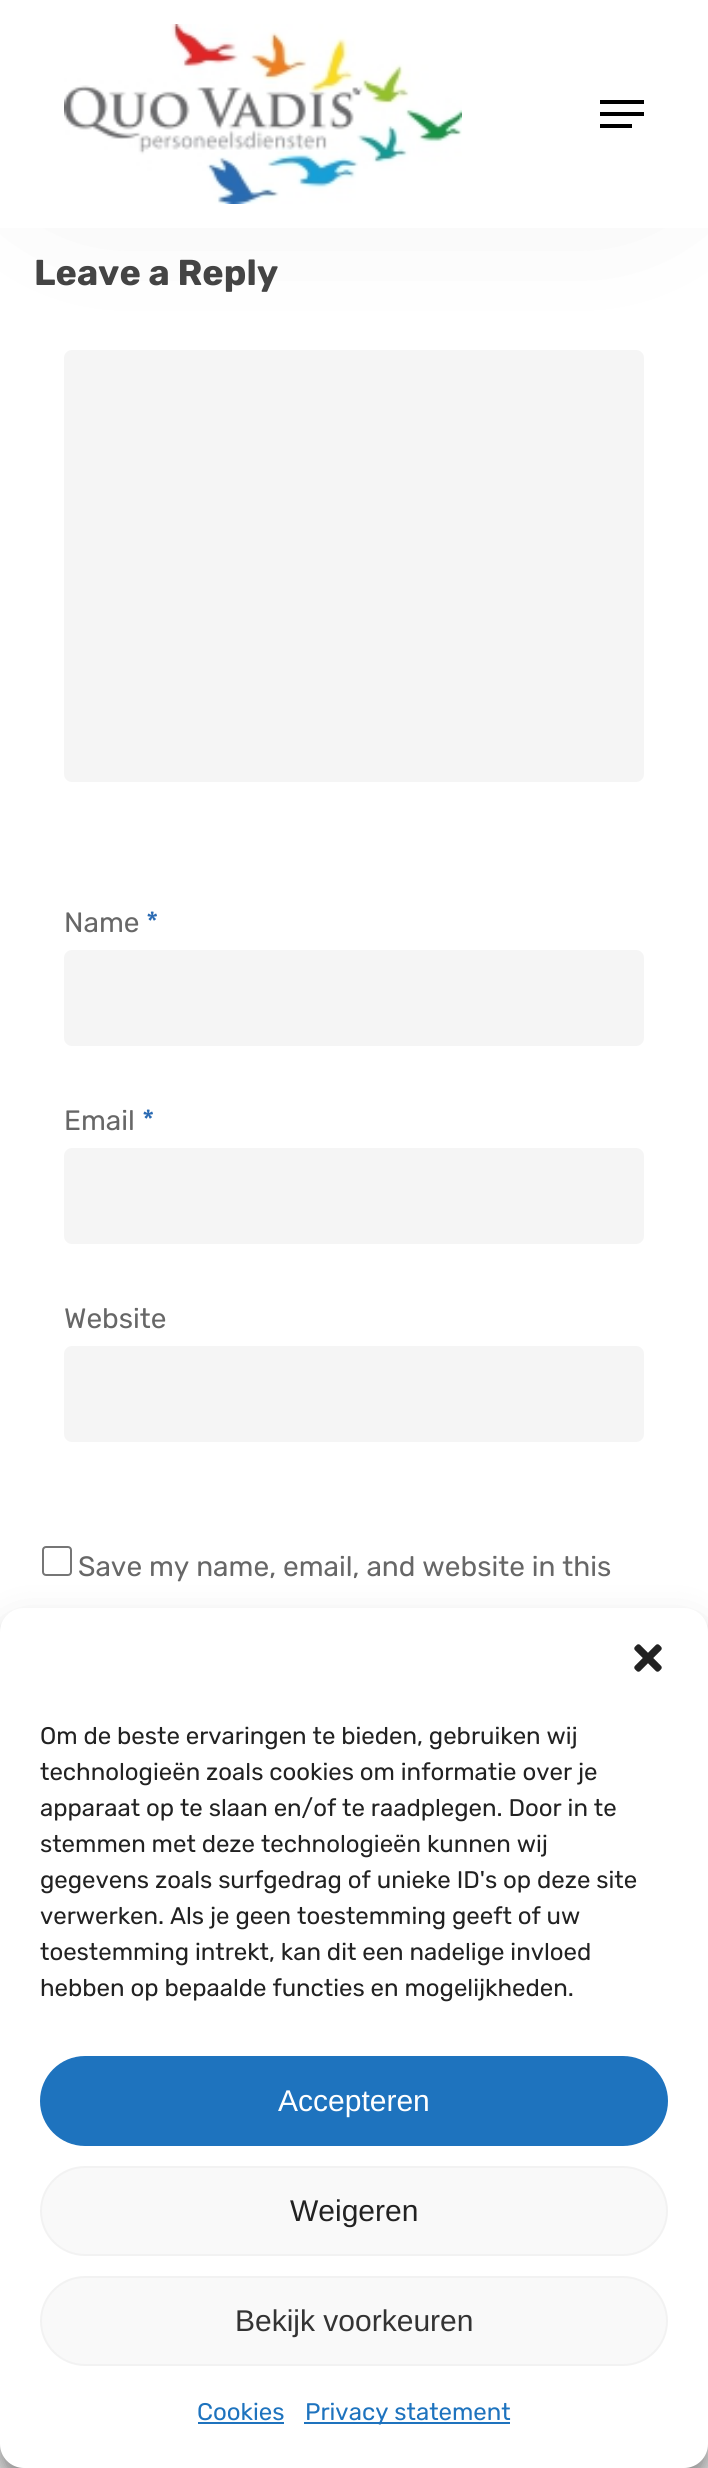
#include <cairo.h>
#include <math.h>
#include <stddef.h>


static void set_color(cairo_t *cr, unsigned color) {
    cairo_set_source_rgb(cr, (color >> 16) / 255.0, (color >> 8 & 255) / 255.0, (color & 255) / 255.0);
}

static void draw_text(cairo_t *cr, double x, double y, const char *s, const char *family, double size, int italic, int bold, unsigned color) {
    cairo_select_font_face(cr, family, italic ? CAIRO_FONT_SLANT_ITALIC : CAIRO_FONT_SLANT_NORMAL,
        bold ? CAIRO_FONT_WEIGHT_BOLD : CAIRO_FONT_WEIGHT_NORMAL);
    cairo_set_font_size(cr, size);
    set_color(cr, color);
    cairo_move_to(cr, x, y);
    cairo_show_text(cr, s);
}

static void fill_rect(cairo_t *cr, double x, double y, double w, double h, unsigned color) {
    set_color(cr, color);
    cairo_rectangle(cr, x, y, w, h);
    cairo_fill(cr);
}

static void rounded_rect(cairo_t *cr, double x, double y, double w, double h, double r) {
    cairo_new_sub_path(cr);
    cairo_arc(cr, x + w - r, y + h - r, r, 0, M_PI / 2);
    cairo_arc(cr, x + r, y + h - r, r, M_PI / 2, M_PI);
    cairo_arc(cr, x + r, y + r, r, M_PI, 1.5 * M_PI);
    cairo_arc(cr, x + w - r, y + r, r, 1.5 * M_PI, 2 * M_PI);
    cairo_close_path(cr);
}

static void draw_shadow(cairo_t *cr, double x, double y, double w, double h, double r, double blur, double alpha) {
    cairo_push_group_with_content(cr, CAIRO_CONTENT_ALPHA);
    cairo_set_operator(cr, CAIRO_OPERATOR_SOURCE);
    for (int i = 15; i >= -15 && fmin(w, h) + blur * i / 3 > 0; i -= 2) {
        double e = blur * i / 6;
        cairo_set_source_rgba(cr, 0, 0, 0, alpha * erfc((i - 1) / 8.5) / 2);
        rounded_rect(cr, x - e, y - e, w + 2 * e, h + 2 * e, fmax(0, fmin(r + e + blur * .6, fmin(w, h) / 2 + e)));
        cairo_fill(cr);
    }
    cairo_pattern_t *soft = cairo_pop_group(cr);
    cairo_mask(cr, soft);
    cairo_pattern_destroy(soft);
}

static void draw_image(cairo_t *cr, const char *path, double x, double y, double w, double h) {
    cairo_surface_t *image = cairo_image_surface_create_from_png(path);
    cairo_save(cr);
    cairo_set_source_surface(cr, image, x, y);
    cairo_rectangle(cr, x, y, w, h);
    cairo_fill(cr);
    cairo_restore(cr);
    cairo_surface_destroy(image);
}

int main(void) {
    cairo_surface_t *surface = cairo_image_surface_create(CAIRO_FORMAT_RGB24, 708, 2468);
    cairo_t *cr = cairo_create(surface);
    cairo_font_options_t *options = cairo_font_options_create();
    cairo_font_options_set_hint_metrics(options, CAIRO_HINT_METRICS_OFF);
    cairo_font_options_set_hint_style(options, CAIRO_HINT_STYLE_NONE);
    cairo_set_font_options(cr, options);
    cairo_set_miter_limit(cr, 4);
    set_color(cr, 0xFFFFFF);
    cairo_paint(cr);
    set_color(cr, 0x000000);
    draw_shadow(cr, 64, -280, 580, 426, 10, 90, 0.14);
    fill_rect(cr, 0, 0, 708, 228, 0xFFFFFF);
    draw_image(cr, "assets/img1.png", 64, 24, 398, 180);
    fill_rect(cr, 600, 100, 44, 4, 0x000000);
    fill_rect(cr, 600, 124, 32, 4, 0x000000);
    fill_rect(cr, 600, 112, 44, 4, 0x000000);
    draw_text(cr, 34, 285, "Leave a Reply", "Rubik", 36, 0, 1, 0x444444);
    set_color(cr, 0xF5F5F5);
    rounded_rect(cr, 64, 350, 580, 432, 8);
    cairo_fill(cr);
    draw_text(cr, 64, 932, "Name", "Rubik", 28, 0, 0, 0x676767);
    draw_text(cr, 146, 932, "*", "Rubik", 28, 0, 0, 0x2B6BB3);
    set_color(cr, 0xF5F5F5);
    rounded_rect(cr, 64, 950, 580, 96, 8);
    cairo_fill(cr);
    draw_text(cr, 64, 1130, "Email", "Rubik", 28, 0, 0, 0x676767);
    draw_text(cr, 142, 1130, "*", "Rubik", 28, 0, 0, 0x2B6BB3);
    set_color(cr, 0xF5F5F5);
    rounded_rect(cr, 64, 1148, 580, 96, 8);
    cairo_fill(cr);
    draw_text(cr, 64, 1328, "Website", "Rubik", 28, 0, 0, 0x676767);
    set_color(cr, 0xF5F5F5);
    rounded_rect(cr, 64, 1346, 580, 96, 8);
    cairo_fill(cr);
    rounded_rect(cr, 43, 1547, 28, 28, 3);
    set_color(cr, 0x767676);
    cairo_stroke(cr);
    draw_text(cr, 78, 1576, "Save my name, email, and website in this", "Rubik", 28, 0, 0, 0x676767);
    fill_rect(cr, 0, 2444, 708, 24, 0xE5E5E5);
    set_color(cr, 0x000000);
    draw_shadow(cr, 0, 1620, 708, 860, 24, 6, 0.23);
    draw_shadow(cr, 0, 1628, 708, 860, 24, 20, 0.19);
    set_color(cr, 0xFFFFFF);
    rounded_rect(cr, 0, 1608, 708, 860, 24);
    cairo_fill(cr);
    draw_image(cr, "assets/img2.png", 634, 1644, 28, 28);
    draw_text(cr, 40, 1744, "Om de beste ervaringen te bieden, gebruiken wij", "Rubik", 24, 0, 0, 0x222222);
    draw_text(cr, 40, 1780, "technologieën zoals cookies om informatie over je", "Rubik", 24, 0, 0, 0x222222);
    draw_text(cr, 40, 1816, "apparaat op te slaan en/of te raadplegen. Door in te", "Rubik", 24, 0, 0, 0x222222);
    draw_text(cr, 40, 1852, "stemmen met deze technologieën kunnen wij", "Rubik", 24, 0, 0, 0x222222);
    draw_text(cr, 40, 1888, "gegevens zoals surfgedrag of unieke ID's op deze site", "Rubik", 24, 0, 0, 0x222222);
    draw_text(cr, 40, 1924, "verwerken. Als je geen toestemming geeft of uw", "Rubik", 24, 0, 0, 0x222222);
    draw_text(cr, 40, 1960, "toestemming intrekt, kan dit een nadelige invloed", "Rubik", 24, 0, 0, 0x222222);
    draw_text(cr, 40, 1996, "hebben op bepaalde functies en mogelijkheden.", "Rubik", 24, 0, 0, 0x222222);
    set_color(cr, 0x1E73BE);
    rounded_rect(cr, 41, 2057, 626, 88, 44);
    cairo_fill_preserve(cr);
    cairo_stroke(cr);
    draw_text(cr, 278, 2111, "Accepteren", "Liberation Sans", 30, 0, 0, 0xFFFFFF);
    set_color(cr, 0xF9F9F9);
    rounded_rect(cr, 41, 2167, 626, 88, 44);
    cairo_fill_preserve(cr);
    set_color(cr, 0xF2F2F2);
    cairo_stroke(cr);
    draw_text(cr, 290, 2221, "Weigeren", "Liberation Sans", 30, 0, 0, 0x222222);
    set_color(cr, 0xF9F9F9);
    rounded_rect(cr, 41, 2277, 626, 88, 44);
    cairo_fill_preserve(cr);
    set_color(cr, 0xF2F2F2);
    cairo_stroke(cr);
    draw_text(cr, 235, 2331, "Bekijk voorkeuren", "Liberation Sans", 30, 0, 0, 0x333333);
    draw_text(cr, 197, 2420, "Cookies", "Rubik", 24, 0, 0, 0x1E73BE);
    fill_rect(cr, 198, 2422, 86, 2, 0x1E73BE);
    fill_rect(cr, 304, 2422, 206, 2, 0x1E73BE);
    draw_text(cr, 305, 2420, "Privacy statement", "Rubik", 24, 0, 0, 0x1E73BE);
    cairo_surface_write_to_png(surface, "output.png");
    cairo_font_options_destroy(options);
    cairo_destroy(cr);
    cairo_surface_destroy(surface);
    return 0;
}
